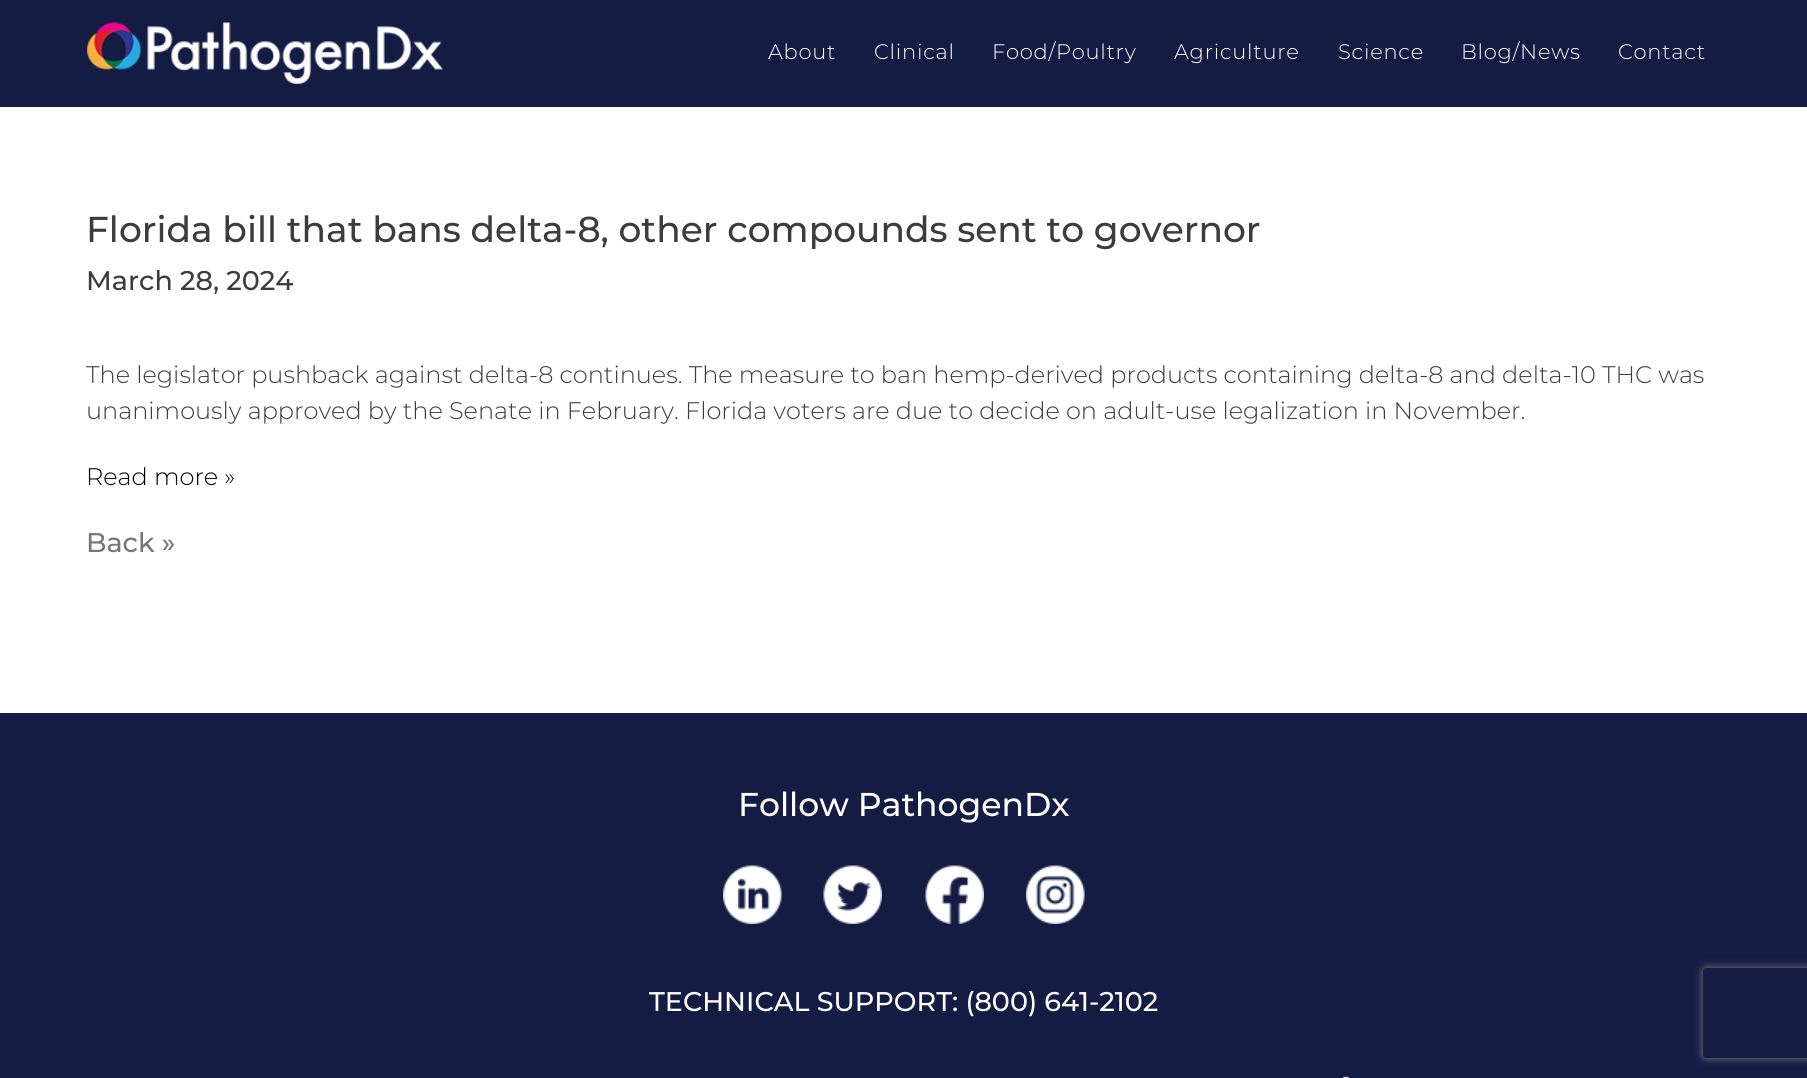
#include <cairo.h>
#include <math.h>
#include <stddef.h>


static void set_color(cairo_t *cr, unsigned color) {
    cairo_set_source_rgb(cr, (color >> 16) / 255.0, (color >> 8 & 255) / 255.0, (color & 255) / 255.0);
}

static void draw_text(cairo_t *cr, double x, double y, const char *s, const char *family, double size, int italic, int bold, unsigned color) {
    cairo_select_font_face(cr, family, italic ? CAIRO_FONT_SLANT_ITALIC : CAIRO_FONT_SLANT_NORMAL,
        bold ? CAIRO_FONT_WEIGHT_BOLD : CAIRO_FONT_WEIGHT_NORMAL);
    cairo_set_font_size(cr, size);
    set_color(cr, color);
    cairo_move_to(cr, x, y);
    cairo_show_text(cr, s);
}

static void draw_spaced(cairo_t *cr, double x, double y, const char *s, double letter, double word) {
    cairo_move_to(cr, x, y);
    while (*s) {
        char ch[5] = {0};
        int n = 0;
        do ch[n++] = *s++; while ((*s & 0xC0) == 0x80);
        cairo_show_text(cr, ch);
        cairo_rel_move_to(cr, letter + word * (*ch == ' '), 0);
    }
}

static void fill_rect(cairo_t *cr, double x, double y, double w, double h, unsigned color) {
    set_color(cr, color);
    cairo_rectangle(cr, x, y, w, h);
    cairo_fill(cr);
}

static void rounded_rect(cairo_t *cr, double x, double y, double w, double h, double r) {
    cairo_new_sub_path(cr);
    cairo_arc(cr, x + w - r, y + h - r, r, 0, M_PI / 2);
    cairo_arc(cr, x + r, y + h - r, r, M_PI / 2, M_PI);
    cairo_arc(cr, x + r, y + r, r, M_PI, 1.5 * M_PI);
    cairo_arc(cr, x + w - r, y + r, r, 1.5 * M_PI, 2 * M_PI);
    cairo_close_path(cr);
}

static void draw_shadow(cairo_t *cr, double x, double y, double w, double h, double r, double blur, double alpha) {
    cairo_push_group_with_content(cr, CAIRO_CONTENT_ALPHA);
    cairo_set_operator(cr, CAIRO_OPERATOR_SOURCE);
    for (int i = 15; i >= -15 && fmin(w, h) + blur * i / 3 > 0; i -= 2) {
        double e = blur * i / 6;
        cairo_set_source_rgba(cr, 0, 0, 0, alpha * erfc((i - 1) / 8.5) / 2);
        rounded_rect(cr, x - e, y - e, w + 2 * e, h + 2 * e, fmax(0, fmin(r + e + blur * .6, fmin(w, h) / 2 + e)));
        cairo_fill(cr);
    }
    cairo_pattern_t *soft = cairo_pop_group(cr);
    cairo_mask(cr, soft);
    cairo_pattern_destroy(soft);
}

static void draw_image(cairo_t *cr, const char *path, double x, double y, double w, double h) {
    cairo_surface_t *image = cairo_image_surface_create_from_png(path);
    cairo_save(cr);
    cairo_set_source_surface(cr, image, x, y);
    cairo_rectangle(cr, x, y, w, h);
    cairo_fill(cr);
    cairo_restore(cr);
    cairo_surface_destroy(image);
}

int main(void) {
    cairo_surface_t *surface = cairo_image_surface_create(CAIRO_FORMAT_RGB24, 1807, 1078);
    cairo_t *cr = cairo_create(surface);
    cairo_font_options_t *options = cairo_font_options_create();
    cairo_font_options_set_hint_metrics(options, CAIRO_HINT_METRICS_OFF);
    cairo_font_options_set_hint_style(options, CAIRO_HINT_STYLE_NONE);
    cairo_set_font_options(cr, options);
    cairo_set_miter_limit(cr, 4);
    set_color(cr, 0xFFFFFF);
    cairo_paint(cr);
    fill_rect(cr, 0, 0, 1807, 107, 0x141C44);
    draw_image(cr, "assets/img1.png", 87, 22, 356, 62);
    cairo_select_font_face(cr, "Montserrat Light", CAIRO_FONT_SLANT_NORMAL, CAIRO_FONT_WEIGHT_NORMAL);
    cairo_set_font_size(cr, 21);
    set_color(cr, 0xFFFFFF);
    draw_spaced(cr, 768, 59, "About", 0.75, 0);
    draw_spaced(cr, 874, 59, "Clinical", 0.75, 0);
    draw_spaced(cr, 992, 59, "Food/Poultry", 0.75, 0);
    draw_spaced(cr, 1174, 59, "Agriculture", 0.75, 0);
    draw_spaced(cr, 1338, 59, "Science", 0.75, 0);
    draw_spaced(cr, 1461, 59, "Blog/News", 0.75, 0);
    draw_spaced(cr, 1618, 59, "Contact", 0.75, 0);
    draw_text(cr, 86, 242, "Florida bill that bans delta-8, other compounds sent to governor", "Montserrat Medium", 36, 0, 0, 0x3C3C3C);
    draw_text(cr, 86, 290, "March 28, 2024", "Montserrat Medium", 27, 0, 0, 0x3C3C3C);
    draw_text(cr, 86, 383, "The legislator pushback against delta-8 continues. The measure to ban hemp-derived products containing delta-8 and delta-10 THC was", "Montserrat Light", 24, 0, 0, 0x3C3C3C);
    draw_text(cr, 86, 419, "unanimously approved by the Senate in February. Florida voters are due to decide on adult-use legalization in November.", "Montserrat Light", 24, 0, 0, 0x3C3C3C);
    draw_text(cr, 86, 485, "Read more »", "Montserrat Light", 24, 0, 0, 0x000000);
    draw_text(cr, 86, 552, "Back »", "Montserrat Medium", 27, 0, 0, 0x777777);
    fill_rect(cr, 0, 713, 1807, 365, 0x141C44);
    draw_text(cr, 738, 816, "Follow PathogenDx", "Montserrat Medium", 33, 0, 0, 0xFFFFFF);
    draw_image(cr, "assets/img2.png", 723, 865, 59, 59);
    draw_image(cr, "assets/img3.png", 823, 865, 59, 59);
    draw_image(cr, "assets/img4.png", 925, 865, 59, 59);
    draw_image(cr, "assets/img5.png", 1026, 865, 59, 59);
    draw_text(cr, 649, 1011, "TECHNICAL SUPPORT: (800) 641-2102", "Montserrat Medium", 27, 0, 0, 0xFFFFFF);
    draw_text(cr, 1342, 1083, "-", "Montserrat Light", 21, 0, 0, 0xFFFFFF);
    cairo_save(cr);
    cairo_set_fill_rule(cr, CAIRO_FILL_RULE_EVEN_ODD);
    cairo_new_path(cr);
    cairo_move_to(cr, 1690, 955);
    cairo_line_to(cr, 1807, 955);
    cairo_line_to(cr, 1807, 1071);
    cairo_line_to(cr, 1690, 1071);
    cairo_close_path(cr);
    cairo_move_to(cr, 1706, 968);
    cairo_line_to(cr, 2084, 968);
    cairo_curve_to(cr, 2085.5, 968, 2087, 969.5, 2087, 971);
    cairo_line_to(cr, 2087, 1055);
    cairo_curve_to(cr, 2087, 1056.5, 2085.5, 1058, 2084, 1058);
    cairo_line_to(cr, 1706, 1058);
    cairo_curve_to(cr, 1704.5, 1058, 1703, 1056.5, 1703, 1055);
    cairo_line_to(cr, 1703, 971);
    cairo_curve_to(cr, 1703, 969.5, 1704.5, 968, 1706, 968);
    cairo_close_path(cr);
    cairo_clip(cr);
    set_color(cr, 0x808080);
    draw_shadow(cr, 1703, 968, 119, 90, 3, 4, 1);
    cairo_restore(cr);
    cairo_surface_write_to_png(surface, "output.png");
    cairo_font_options_destroy(options);
    cairo_destroy(cr);
    cairo_surface_destroy(surface);
    return 0;
}
